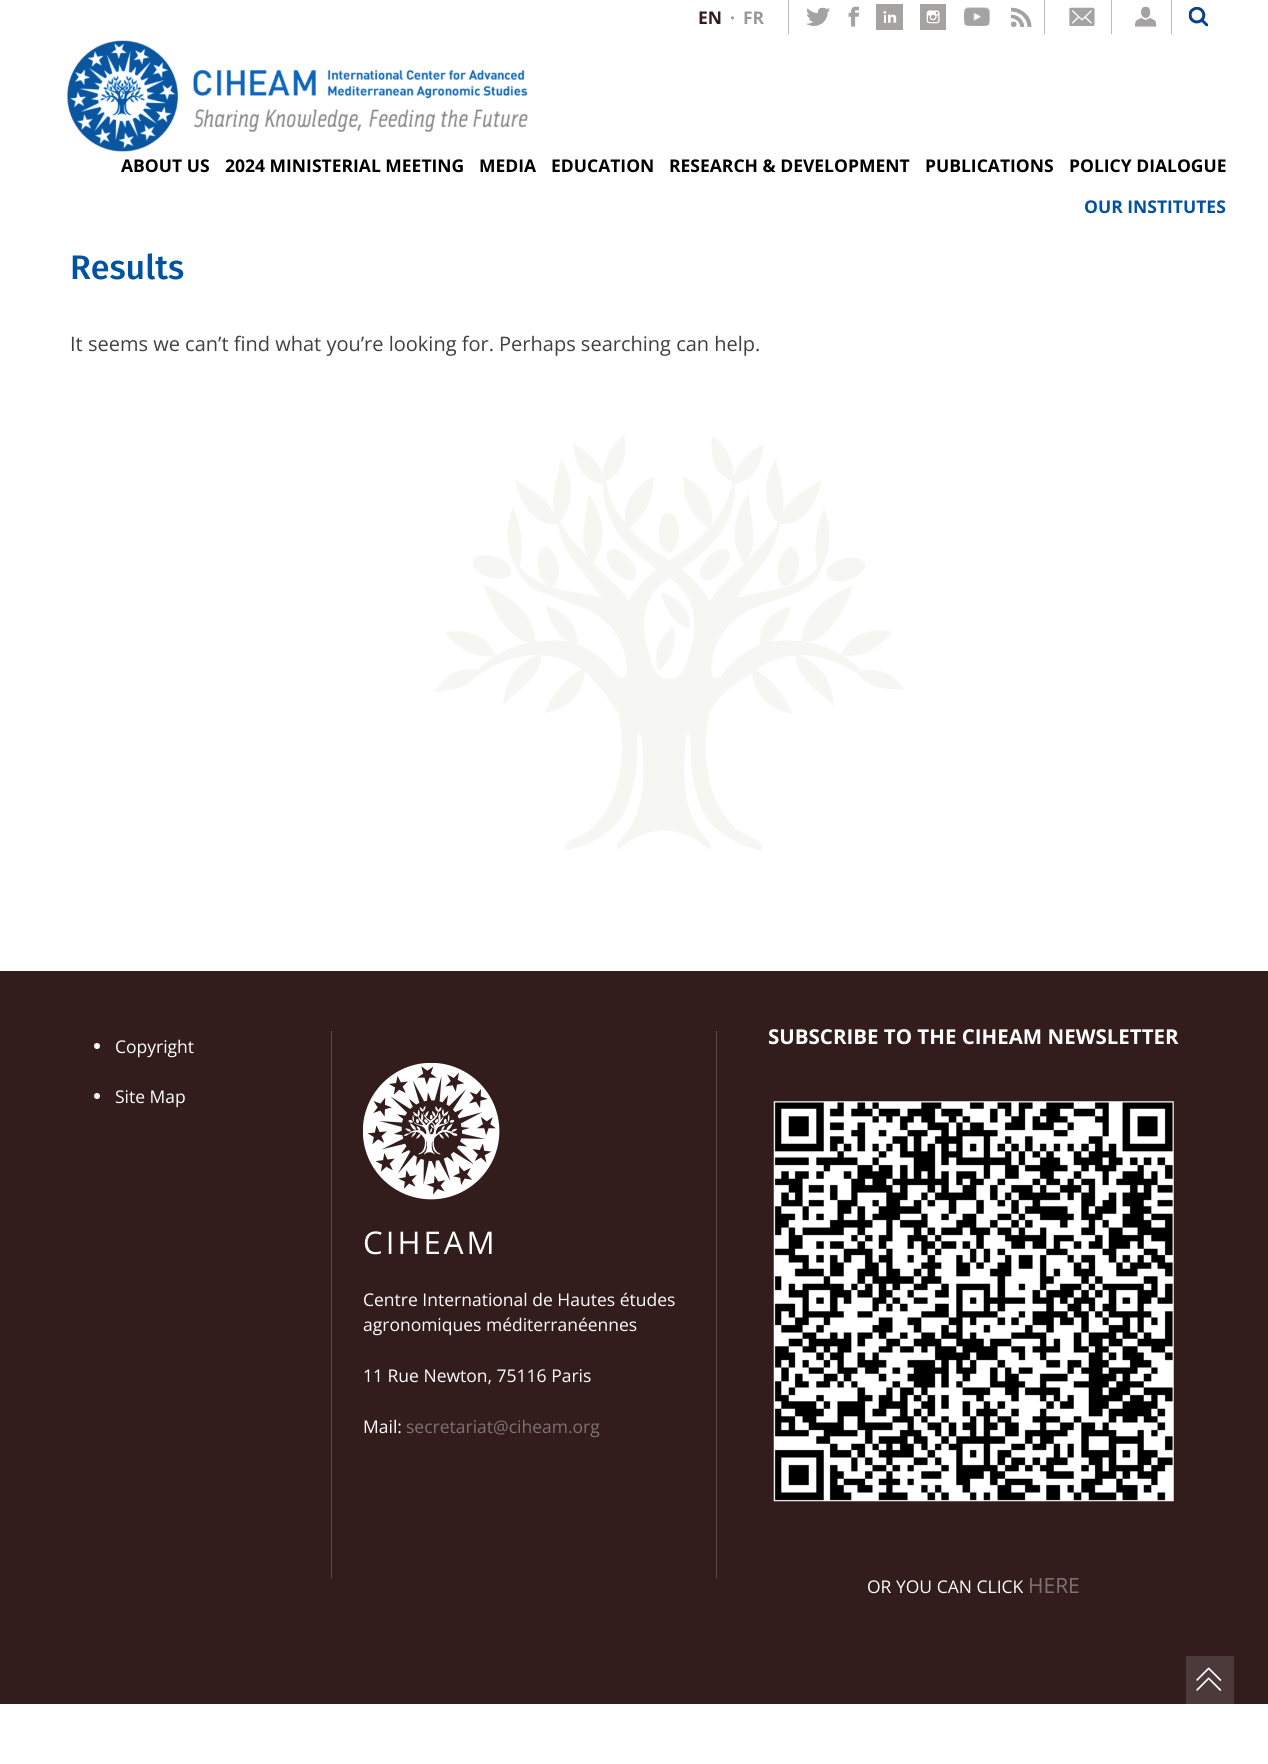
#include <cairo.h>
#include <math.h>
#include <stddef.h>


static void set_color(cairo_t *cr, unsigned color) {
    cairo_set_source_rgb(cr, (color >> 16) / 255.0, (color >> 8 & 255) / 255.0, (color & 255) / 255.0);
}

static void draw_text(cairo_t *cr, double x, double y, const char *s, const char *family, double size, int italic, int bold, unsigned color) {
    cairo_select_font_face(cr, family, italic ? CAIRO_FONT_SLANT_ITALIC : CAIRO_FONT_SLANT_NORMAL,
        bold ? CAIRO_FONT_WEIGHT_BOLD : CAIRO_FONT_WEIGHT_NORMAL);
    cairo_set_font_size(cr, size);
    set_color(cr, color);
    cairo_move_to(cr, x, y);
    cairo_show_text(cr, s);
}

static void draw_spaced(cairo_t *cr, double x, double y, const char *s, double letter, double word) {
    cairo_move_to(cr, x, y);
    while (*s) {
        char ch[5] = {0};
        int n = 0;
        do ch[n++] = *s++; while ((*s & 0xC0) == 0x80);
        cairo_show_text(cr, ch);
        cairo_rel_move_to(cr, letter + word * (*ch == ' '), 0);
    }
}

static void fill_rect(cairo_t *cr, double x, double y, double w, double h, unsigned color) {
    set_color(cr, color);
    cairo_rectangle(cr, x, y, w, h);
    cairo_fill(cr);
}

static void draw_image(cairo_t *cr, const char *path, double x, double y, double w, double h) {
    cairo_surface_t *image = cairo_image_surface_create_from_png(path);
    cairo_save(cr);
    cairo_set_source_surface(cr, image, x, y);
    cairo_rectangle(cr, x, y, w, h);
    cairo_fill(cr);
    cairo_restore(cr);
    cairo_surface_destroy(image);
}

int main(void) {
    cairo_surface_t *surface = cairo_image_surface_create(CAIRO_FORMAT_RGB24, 1268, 1764);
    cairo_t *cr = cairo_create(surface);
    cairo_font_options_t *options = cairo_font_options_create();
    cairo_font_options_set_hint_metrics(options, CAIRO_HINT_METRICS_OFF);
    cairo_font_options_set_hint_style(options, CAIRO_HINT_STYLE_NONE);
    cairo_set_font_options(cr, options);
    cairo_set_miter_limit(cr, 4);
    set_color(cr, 0xFFFFFF);
    cairo_paint(cr);
    draw_text(cr, 698, 24, "EN", "Open Sans", 17.5, 0, 1, 0x321C1C);
    draw_text(cr, 730, 24, "·", "Open Sans", 17.5, 0, 1, 0x999999);
    draw_text(cr, 743, 24, "FR", "Open Sans", 17.5, 0, 1, 0x999999);
    fill_rect(cr, 788, 0, 1, 34, 0xBBBBBB);
    draw_image(cr, "assets/img1.png", 806, 7, 24, 19);
    draw_image(cr, "assets/img2.png", 848, 6, 11, 21);
    draw_image(cr, "assets/img3.png", 876, 4, 27, 26);
    draw_image(cr, "assets/img4.png", 920, 4, 26, 26);
    draw_image(cr, "assets/img5.png", 964, 7, 26, 19);
    draw_image(cr, "assets/img6.png", 1011, 7, 21, 20);
    fill_rect(cr, 1044, 0, 1, 34, 0xBBBBBB);
    draw_image(cr, "assets/img7.png", 1069, 7, 26, 19);
    fill_rect(cr, 1111, 0, 1, 34, 0xBBBBBB);
    draw_image(cr, "assets/img8.png", 1135, 6, 22, 21);
    fill_rect(cr, 1171, 0, 1, 34, 0xBBBBBB);
    draw_image(cr, "assets/img9.png", 1188, 6, 21, 21);
    draw_image(cr, "assets/img10.png", 67, 40, 461, 112);
    draw_text(cr, 121, 172, "ABOUT US", "Open Sans", 17.5, 0, 1, 0x000000);
    draw_text(cr, 225, 172, "2024 MINISTERIAL MEETING", "Open Sans", 17.5, 0, 1, 0x000000);
    draw_text(cr, 479, 172, "MEDIA", "Open Sans", 17.5, 0, 1, 0x000000);
    draw_text(cr, 551, 172, "EDUCATION", "Open Sans", 17.5, 0, 1, 0x000000);
    draw_text(cr, 669, 172, "RESEARCH & DEVELOPMENT", "Open Sans", 17.5, 0, 1, 0x000000);
    draw_text(cr, 925, 172, "PUBLICATIONS", "Open Sans", 17.5, 0, 1, 0x000000);
    draw_text(cr, 1069, 172, "POLICY DIALOGUE", "Open Sans", 17.5, 0, 1, 0x000000);
    draw_text(cr, 1084, 213, "OUR INSTITUTES", "Open Sans", 17.5, 0, 1, 0x0152A0);
    draw_text(cr, 70, 279, "Results", "Fira Sans Medium", 34, 0, 0, 0x0152A0);
    draw_text(cr, 70, 351, "It seems we can’t find what you’re looking for. Perhaps searching can help.", "Open Sans", 20, 0, 0, 0x404040);
    draw_image(cr, "assets/img11.png", 434, 435, 471, 415);
    fill_rect(cr, 0, 971, 1268, 733, 0x321C1C);
    set_color(cr, 0xFFFFFF);
    cairo_arc(cr, 97, 1046, 3, 0, 2 * M_PI);
    cairo_fill(cr);
    draw_text(cr, 115, 1053, "Copyright", "Open Sans", 17.5, 0, 0, 0xFFFFFF);
    cairo_new_path(cr);
    cairo_arc(cr, 97, 1096, 3, 0, 2 * M_PI);
    cairo_fill(cr);
    draw_text(cr, 115, 1103, "Site Map", "Open Sans", 17.5, 0, 0, 0xFFFFFF);
    draw_text(cr, 768, 1044, "SUBSCRIBE TO THE CIHEAM NEWSLETTER", "Open Sans", 20.5, 0, 1, 0xFFFFFF);
    draw_image(cr, "assets/img12.png", 773, 1101, 401, 401);
    draw_text(cr, 867, 1593, "OR YOU CAN CLICK", "Open Sans", 17.5, 0, 0, 0xFFFFFF);
    draw_text(cr, 1028, 1593, "HERE", "Open Sans", 21, 0, 0, 0x807172);
    fill_rect(cr, 716, 1031, 1, 547, 0x614848);
    fill_rect(cr, 331, 1031, 1, 547, 0x614848);
    draw_image(cr, "assets/img13.png", 363, 1063, 137, 137);
    cairo_set_font_size(cr, 31.25);
    set_color(cr, 0xFFFFFF);
    draw_spaced(cr, 363, 1254, "CIHEAM", 3, 0);
    draw_text(cr, 363, 1306, "Centre International de Hautes études", "Open Sans", 17.5, 0, 0, 0xFFFFFF);
    draw_text(cr, 363, 1331, "agronomiques méditerranéennes", "Open Sans", 17.5, 0, 0, 0xFFFFFF);
    draw_text(cr, 363, 1382, "11 Rue Newton, 75116 Paris", "Open Sans", 17.5, 0, 0, 0xFFFFFF);
    draw_text(cr, 363, 1433, "Mail:", "Open Sans", 17.5, 0, 0, 0xFFFFFF);
    draw_text(cr, 406, 1433, "secretariat@ciheam.org", "Open Sans", 17.5, 0, 0, 0x807172);
    draw_image(cr, "assets/img14.png", 1186, 1656, 48, 48);
    cairo_surface_write_to_png(surface, "output.png");
    cairo_font_options_destroy(options);
    cairo_destroy(cr);
    cairo_surface_destroy(surface);
    return 0;
}
